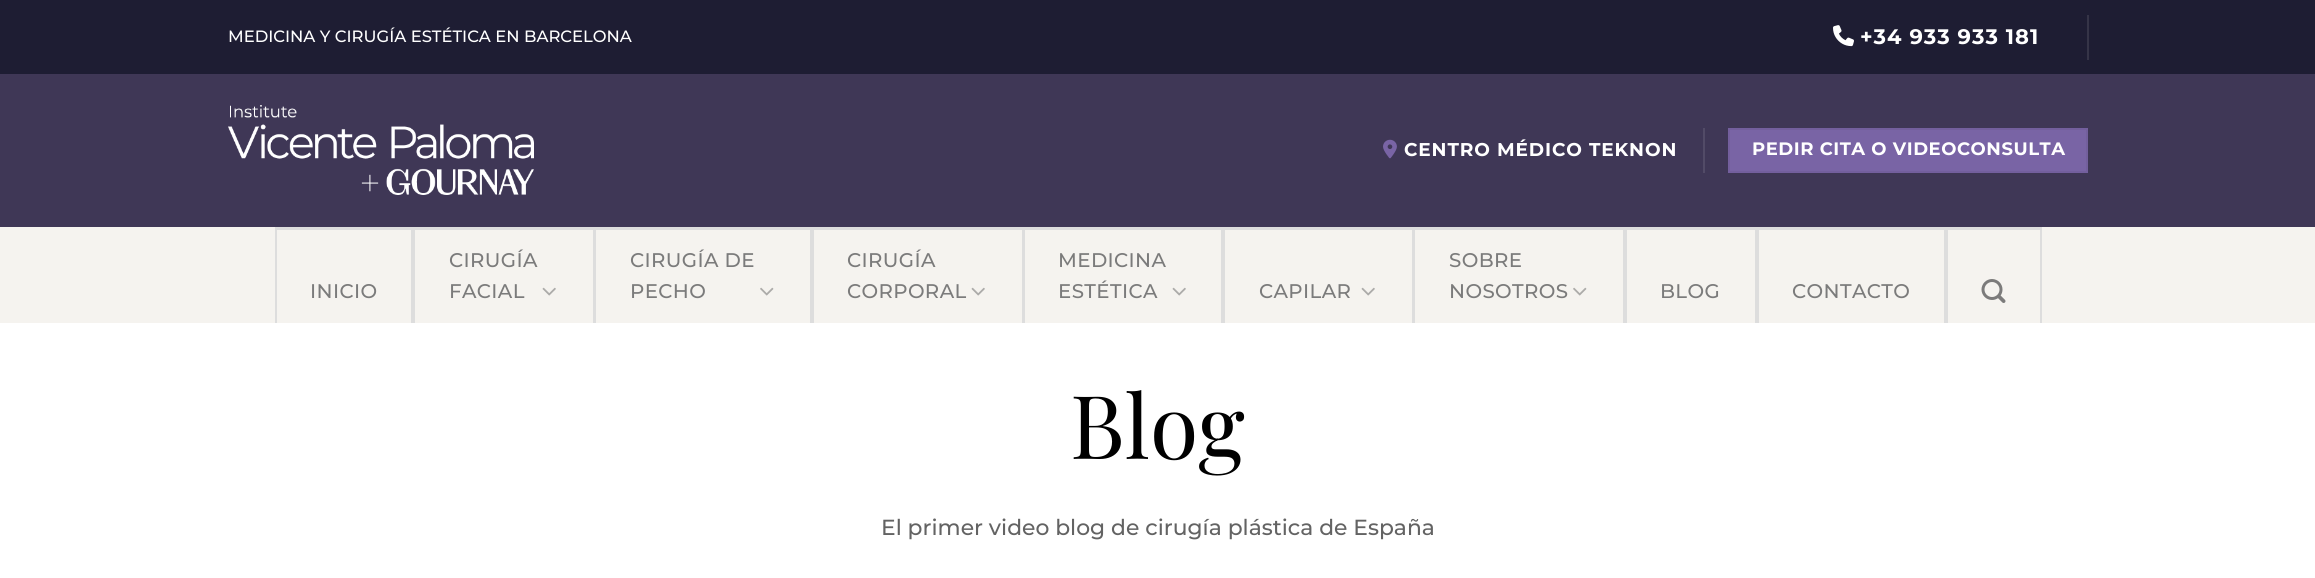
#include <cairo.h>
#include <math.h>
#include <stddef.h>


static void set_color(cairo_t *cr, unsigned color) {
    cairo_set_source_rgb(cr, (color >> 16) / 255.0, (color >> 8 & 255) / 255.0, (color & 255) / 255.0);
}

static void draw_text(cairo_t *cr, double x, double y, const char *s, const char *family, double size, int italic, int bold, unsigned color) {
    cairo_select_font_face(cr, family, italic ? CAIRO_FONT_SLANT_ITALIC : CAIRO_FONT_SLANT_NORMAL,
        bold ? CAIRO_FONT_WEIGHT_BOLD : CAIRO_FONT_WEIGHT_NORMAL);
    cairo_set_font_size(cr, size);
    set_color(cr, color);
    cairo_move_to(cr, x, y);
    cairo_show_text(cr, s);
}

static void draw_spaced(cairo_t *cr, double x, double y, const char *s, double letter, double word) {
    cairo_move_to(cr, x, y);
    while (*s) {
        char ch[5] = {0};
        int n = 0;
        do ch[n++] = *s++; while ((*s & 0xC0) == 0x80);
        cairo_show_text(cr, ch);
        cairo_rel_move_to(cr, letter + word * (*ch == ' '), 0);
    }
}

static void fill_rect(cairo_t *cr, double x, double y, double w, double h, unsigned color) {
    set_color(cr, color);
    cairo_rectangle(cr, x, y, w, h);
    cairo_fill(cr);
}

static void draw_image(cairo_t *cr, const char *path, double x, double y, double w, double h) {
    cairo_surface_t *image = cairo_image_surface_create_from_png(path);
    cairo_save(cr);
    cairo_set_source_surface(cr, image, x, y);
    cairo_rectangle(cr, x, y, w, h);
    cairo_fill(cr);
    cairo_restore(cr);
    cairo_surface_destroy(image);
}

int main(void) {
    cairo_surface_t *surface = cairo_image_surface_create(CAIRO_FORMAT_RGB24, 2315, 578);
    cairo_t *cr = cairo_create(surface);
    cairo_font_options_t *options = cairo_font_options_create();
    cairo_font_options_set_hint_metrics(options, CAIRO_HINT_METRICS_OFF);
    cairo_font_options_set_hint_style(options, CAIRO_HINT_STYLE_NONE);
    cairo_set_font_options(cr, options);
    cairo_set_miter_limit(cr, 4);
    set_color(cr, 0xFFFFFF);
    cairo_paint(cr);
    fill_rect(cr, 0, 0, 2315, 74, 0x1E1D33);
    draw_text(cr, 228, 42, "MEDICINA Y CIRUGÍA ESTÉTICA EN BARCELONA", "Montserrat Medium", 16.4, 0, 0, 0xFFFFFF);
    draw_image(cr, "assets/img1.png", 1833, 25, 21, 22);
    cairo_select_font_face(cr, "Montserrat", CAIRO_FONT_SLANT_NORMAL, CAIRO_FONT_WEIGHT_BOLD);
    cairo_set_font_size(cr, 21);
    draw_spaced(cr, 1860, 44, "+34 933 933 181", 1, 0);
    fill_rect(cr, 2087, 15, 2, 45, 0x353447);
    fill_rect(cr, 0, 74, 2315, 153, 0x3F3756);
    draw_image(cr, "assets/img2.png", 228, 105, 306, 90);
    draw_image(cr, "assets/img3.png", 1383, 139, 14, 20);
    cairo_set_font_size(cr, 18.5);
    set_color(cr, 0xFFFFFF);
    draw_spaced(cr, 1404, 156, "CENTRO MÉDICO TEKNON", 0.9, 0);
    fill_rect(cr, 1703, 128, 2, 45, 0x524B67);
    set_color(cr, 0x7964A5);
    cairo_rectangle(cr, 1729, 129, 358, 43);
    cairo_fill_preserve(cr);
    set_color(cr, 0x735F9D);
    cairo_stroke(cr);
    cairo_set_font_size(cr, 18);
    set_color(cr, 0xFFFFFF);
    draw_spaced(cr, 1752, 155, "PEDIR CITA O VIDEOCONSULTA", 0.55, 0);
    fill_rect(cr, 0, 227, 2315, 96, 0xF5F3EF);
    fill_rect(cr, 275, 227, 1767, 3, 0xDDDDDD);
    fill_rect(cr, 411, 227, 4, 96, 0xDDDDDD);
    fill_rect(cr, 275, 227, 2, 96, 0xDDDDDD);
    cairo_select_font_face(cr, "Montserrat Medium", CAIRO_FONT_SLANT_NORMAL, CAIRO_FONT_WEIGHT_NORMAL);
    cairo_set_font_size(cr, 19.75);
    set_color(cr, 0x7B7B7B);
    draw_spaced(cr, 310, 298, "INICIO", 0.4, 0);
    fill_rect(cr, 593, 227, 3, 96, 0xDDDDDD);
    set_color(cr, 0x7B7B7B);
    draw_spaced(cr, 449, 267, "CIRUGÍA", 0.4, 0);
    draw_spaced(cr, 449, 298, "FACIAL", 0.4, 0);
    draw_image(cr, "assets/img4.png", 542, 287, 14, 9);
    fill_rect(cr, 810, 227, 4, 96, 0xDDDDDD);
    set_color(cr, 0x7B7B7B);
    draw_spaced(cr, 630, 267, "CIRUGÍA DE", 0.4, 0);
    draw_spaced(cr, 630, 298, "PECHO", 0.4, 0);
    draw_image(cr, "assets/img5.png", 760, 287, 14, 9);
    fill_rect(cr, 1022, 227, 3, 96, 0xDDDDDD);
    set_color(cr, 0x7B7B7B);
    draw_spaced(cr, 847, 267, "CIRUGÍA", 0.4, 0);
    draw_spaced(cr, 847, 298, "CORPORAL", 0.4, 0);
    draw_image(cr, "assets/img4.png", 971, 287, 14, 9);
    fill_rect(cr, 1221, 227, 4, 96, 0xDDDDDD);
    set_color(cr, 0x7B7B7B);
    draw_spaced(cr, 1058, 267, "MEDICINA", 0.4, 0);
    draw_spaced(cr, 1058, 298, "ESTÉTICA", 0.4, 0);
    draw_image(cr, "assets/img4.png", 1172, 287, 14, 9);
    fill_rect(cr, 1412, 227, 3, 96, 0xDDDDDD);
    set_color(cr, 0x7B7B7B);
    draw_spaced(cr, 1259, 298, "CAPILAR", 0.4, 0);
    draw_image(cr, "assets/img4.png", 1361, 287, 14, 9);
    fill_rect(cr, 1623, 227, 4, 96, 0xDDDDDD);
    set_color(cr, 0x7B7B7B);
    draw_spaced(cr, 1449, 267, "SOBRE", 0.4, 0);
    draw_spaced(cr, 1449, 298, "NOSOTROS", 0.4, 0);
    draw_image(cr, "assets/img5.png", 1573, 287, 14, 9);
    fill_rect(cr, 1755, 227, 4, 96, 0xDDDDDD);
    set_color(cr, 0x7B7B7B);
    draw_spaced(cr, 1660, 298, "BLOG", 0.4, 0);
    fill_rect(cr, 1944, 227, 4, 96, 0xDDDDDD);
    set_color(cr, 0x7B7B7B);
    draw_spaced(cr, 1792, 298, "CONTACTO", 0.4, 0);
    fill_rect(cr, 2040, 227, 2, 96, 0xDDDDDD);
    draw_image(cr, "assets/img6.png", 1981, 279, 25, 24);
    draw_text(cr, 1070, 459, "Blog", "Playfair Display", 88, 0, 0, 0x000000);
    draw_text(cr, 881, 535, "El primer video blog de cirugía plástica de España", "Montserrat Medium", 21.85, 0, 0, 0x636363);
    cairo_surface_write_to_png(surface, "output.png");
    cairo_font_options_destroy(options);
    cairo_destroy(cr);
    cairo_surface_destroy(surface);
    return 0;
}
